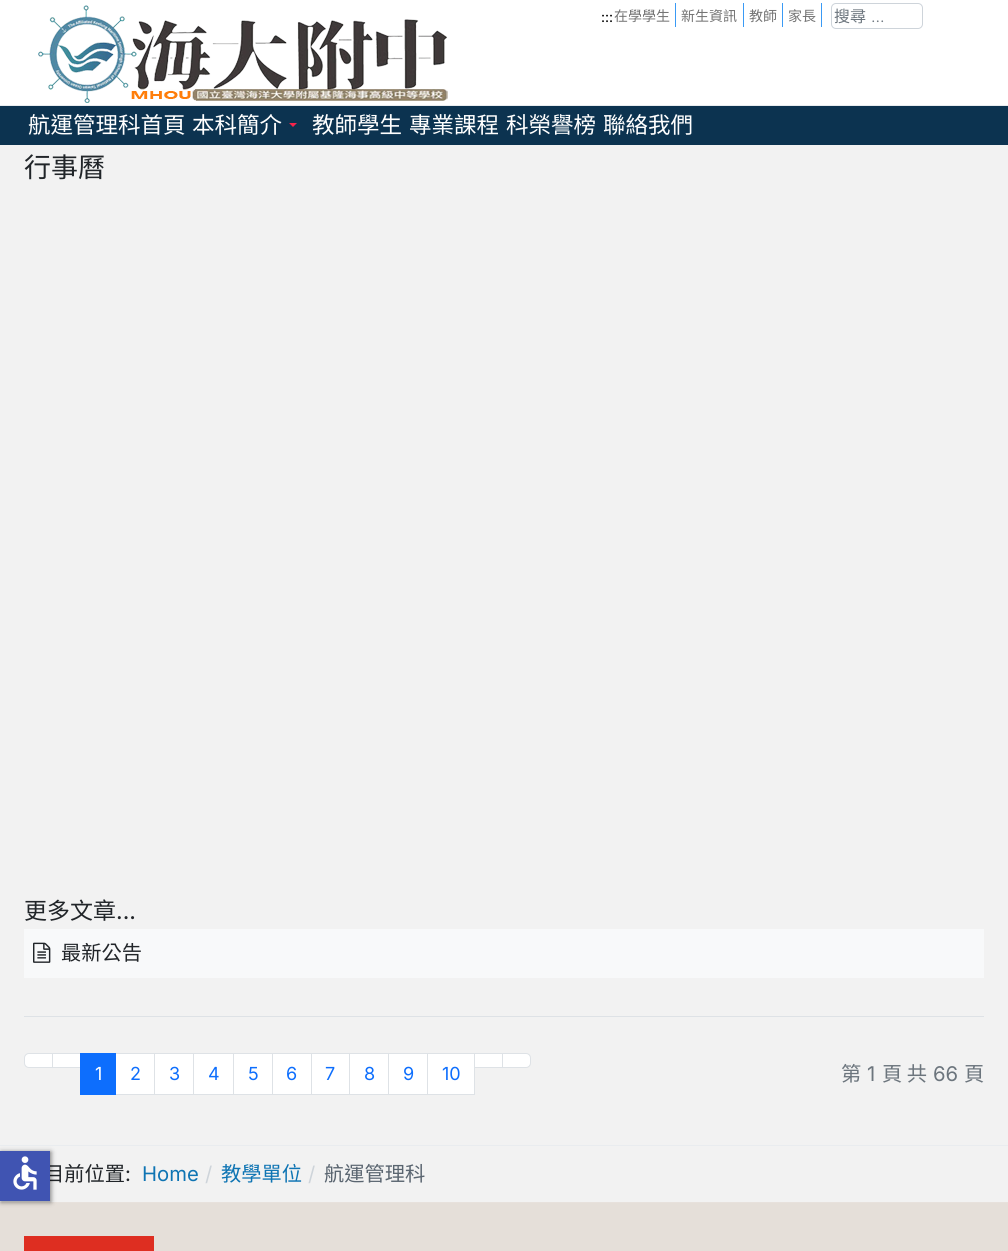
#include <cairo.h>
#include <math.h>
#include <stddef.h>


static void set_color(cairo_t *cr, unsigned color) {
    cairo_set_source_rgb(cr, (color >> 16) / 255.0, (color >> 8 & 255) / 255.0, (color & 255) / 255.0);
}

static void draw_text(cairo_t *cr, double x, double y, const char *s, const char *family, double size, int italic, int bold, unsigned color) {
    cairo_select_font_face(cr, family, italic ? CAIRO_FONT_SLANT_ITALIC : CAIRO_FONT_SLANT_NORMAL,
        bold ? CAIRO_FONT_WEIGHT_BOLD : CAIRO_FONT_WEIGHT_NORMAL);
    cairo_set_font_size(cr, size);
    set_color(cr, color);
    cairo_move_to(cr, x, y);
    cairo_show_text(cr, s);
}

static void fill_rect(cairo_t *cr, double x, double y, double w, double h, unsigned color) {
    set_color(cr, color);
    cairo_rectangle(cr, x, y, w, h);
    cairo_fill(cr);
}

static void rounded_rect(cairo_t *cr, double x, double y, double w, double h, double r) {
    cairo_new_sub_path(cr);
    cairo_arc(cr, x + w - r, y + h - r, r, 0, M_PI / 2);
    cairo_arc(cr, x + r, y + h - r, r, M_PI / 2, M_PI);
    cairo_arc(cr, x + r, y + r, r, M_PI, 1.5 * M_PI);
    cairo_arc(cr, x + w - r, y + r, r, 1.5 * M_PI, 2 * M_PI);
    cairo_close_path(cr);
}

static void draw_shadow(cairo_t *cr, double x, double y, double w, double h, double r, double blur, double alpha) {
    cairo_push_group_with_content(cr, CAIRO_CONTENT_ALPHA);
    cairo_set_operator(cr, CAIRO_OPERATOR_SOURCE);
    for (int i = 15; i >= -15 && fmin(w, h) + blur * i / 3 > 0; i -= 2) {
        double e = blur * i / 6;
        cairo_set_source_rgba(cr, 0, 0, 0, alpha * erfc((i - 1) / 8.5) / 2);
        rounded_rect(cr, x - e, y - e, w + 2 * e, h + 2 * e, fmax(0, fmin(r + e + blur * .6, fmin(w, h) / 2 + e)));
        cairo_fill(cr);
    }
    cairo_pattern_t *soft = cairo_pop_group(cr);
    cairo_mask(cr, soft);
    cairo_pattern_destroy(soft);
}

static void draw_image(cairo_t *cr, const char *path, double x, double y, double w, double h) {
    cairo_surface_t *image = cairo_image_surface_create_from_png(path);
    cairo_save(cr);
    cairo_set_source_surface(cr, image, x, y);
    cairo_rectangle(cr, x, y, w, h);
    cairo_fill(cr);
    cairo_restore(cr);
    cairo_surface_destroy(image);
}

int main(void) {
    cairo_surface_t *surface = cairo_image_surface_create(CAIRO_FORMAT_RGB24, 1008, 1251);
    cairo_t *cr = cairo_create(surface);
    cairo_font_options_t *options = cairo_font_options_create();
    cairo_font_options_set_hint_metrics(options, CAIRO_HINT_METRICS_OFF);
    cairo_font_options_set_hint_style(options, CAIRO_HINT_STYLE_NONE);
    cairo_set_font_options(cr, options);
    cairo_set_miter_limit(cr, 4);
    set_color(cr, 0xF2F2F2);
    cairo_paint(cr);
    fill_rect(cr, 0, 0, 1008, 105, 0xFFFFFF);
    fill_rect(cr, 0, 105, 1008, 1, 0xE9ECEF);
    draw_image(cr, "assets/img1.png", 38, 5, 410, 98);
    draw_text(cr, 601, 22, ":::", "Inter", 14, 0, 0, 0x000000);
    fill_rect(cr, 675, 3, 1, 24, 0x3A9AF5);
    draw_text(cr, 614, 21, "在學學生", "Noto Sans CJK TC", 14, 0, 0, 0x737373);
    fill_rect(cr, 743, 3, 1, 24, 0x3A9AF5);
    draw_text(cr, 681, 21, "新生資訊", "Noto Sans CJK TC", 14, 0, 0, 0x737373);
    fill_rect(cr, 782, 3, 1, 24, 0x3A9AF5);
    draw_text(cr, 749, 21, "教師", "Noto Sans CJK TC", 14, 0, 0, 0x737373);
    fill_rect(cr, 821, 3, 1, 24, 0x3A9AF5);
    draw_text(cr, 788, 21, "家長", "Noto Sans CJK TC", 14, 0, 0, 0x737373);
    rounded_rect(cr, 831.5, 3.5, 91, 25, 4.5);
    set_color(cr, 0xCED4DA);
    cairo_set_line_width(cr, 1);
    cairo_stroke(cr);
    draw_text(cr, 834, 22, "搜尋", "Noto Sans CJK TC", 16, 0, 0, 0x6C757D);
    draw_text(cr, 871, 22, "...", "Inter Light", 16, 0, 0, 0x6C757D);
    fill_rect(cr, 0, 106, 1008, 39, 0x0C3350);
    draw_text(cr, 28, 133, "航運管理科首頁", "Noto Sans CJK TC", 22.5, 0, 0, 0xFFFFFF);
    draw_text(cr, 192, 133, "本科簡介", "Noto Sans CJK TC", 22.5, 0, 0, 0xFFFFFF);
    set_color(cr, 0xF7244B);
    cairo_new_path(cr);
    cairo_move_to(cr, 289, 123);
    cairo_line_to(cr, 297, 123);
    cairo_line_to(cr, 293, 127);
    cairo_close_path(cr);
    cairo_fill(cr);
    draw_text(cr, 312, 133, "教師學生", "Noto Sans CJK TC", 22.5, 0, 0, 0xFFFFFF);
    draw_text(cr, 409, 133, "專業課程", "Noto Sans CJK TC", 22.5, 0, 0, 0xFFFFFF);
    draw_text(cr, 506, 133, "科榮譽榜", "Noto Sans CJK TC", 22.5, 0, 0, 0xFFFFFF);
    draw_text(cr, 603, 133, "聯絡我們", "Noto Sans CJK TC", 22.5, 0, 0, 0xFFFFFF);
    draw_text(cr, 24, 177, "行事曆", "Noto Sans CJK TC", 27, 0, 0, 0x212529);
    draw_text(cr, 24, 919, "更多文章", "Noto Sans CJK TC", 23, 0, 0, 0x212529);
    draw_text(cr, 116, 919, "...", "Inter", 23, 0, 0, 0x212529);
    fill_rect(cr, 24, 1016, 960, 1, 0xDEE2E6);
    fill_rect(cr, 24, 929, 960, 49, 0xF8F9FA);
    draw_image(cr, "assets/img2.png", 33, 942, 18, 21);
    draw_text(cr, 61, 960, "最新公告", "Noto Sans CJK TC", 20.25, 0, 0, 0x212529);
    set_color(cr, 0xFFFFFF);
    cairo_new_path(cr);
    cairo_move_to(cr, 29, 1053.5);
    cairo_line_to(cr, 52.5, 1053.5);
    cairo_line_to(cr, 52.5, 1067.5);
    cairo_line_to(cr, 29, 1067.5);
    cairo_curve_to(cr, 26.5, 1067.5, 24.5, 1065.5, 24.5, 1063);
    cairo_line_to(cr, 24.5, 1058);
    cairo_curve_to(cr, 24.5, 1055.5, 26.5, 1053.5, 29, 1053.5);
    cairo_close_path(cr);
    cairo_fill_preserve(cr);
    set_color(cr, 0xDEE2E6);
    cairo_stroke(cr);
    set_color(cr, 0xFFFFFF);
    cairo_rectangle(cr, 52.5, 1053.5, 28, 14);
    cairo_fill_preserve(cr);
    set_color(cr, 0xDEE2E6);
    cairo_stroke(cr);
    set_color(cr, 0xFFFFFF);
    cairo_rectangle(cr, 115.5, 1053.5, 39, 41);
    cairo_fill_preserve(cr);
    set_color(cr, 0xDEE2E6);
    cairo_stroke(cr);
    set_color(cr, 0xFFFFFF);
    cairo_rectangle(cr, 154.5, 1053.5, 39, 41);
    cairo_fill_preserve(cr);
    set_color(cr, 0xDEE2E6);
    cairo_stroke(cr);
    set_color(cr, 0xFFFFFF);
    cairo_rectangle(cr, 193.5, 1053.5, 40, 41);
    cairo_fill_preserve(cr);
    set_color(cr, 0xDEE2E6);
    cairo_stroke(cr);
    set_color(cr, 0xFFFFFF);
    cairo_rectangle(cr, 233.5, 1053.5, 39, 41);
    cairo_fill_preserve(cr);
    set_color(cr, 0xDEE2E6);
    cairo_stroke(cr);
    set_color(cr, 0xFFFFFF);
    cairo_rectangle(cr, 272.5, 1053.5, 39, 41);
    cairo_fill_preserve(cr);
    set_color(cr, 0xDEE2E6);
    cairo_stroke(cr);
    set_color(cr, 0xFFFFFF);
    cairo_rectangle(cr, 311.5, 1053.5, 38, 41);
    cairo_fill_preserve(cr);
    set_color(cr, 0xDEE2E6);
    cairo_stroke(cr);
    set_color(cr, 0xFFFFFF);
    cairo_rectangle(cr, 349.5, 1053.5, 39, 41);
    cairo_fill_preserve(cr);
    set_color(cr, 0xDEE2E6);
    cairo_stroke(cr);
    set_color(cr, 0xFFFFFF);
    cairo_rectangle(cr, 388.5, 1053.5, 39, 41);
    cairo_fill_preserve(cr);
    set_color(cr, 0xDEE2E6);
    cairo_stroke(cr);
    set_color(cr, 0xFFFFFF);
    cairo_rectangle(cr, 427.5, 1053.5, 47, 41);
    cairo_fill_preserve(cr);
    set_color(cr, 0xDEE2E6);
    cairo_stroke(cr);
    set_color(cr, 0xFFFFFF);
    cairo_rectangle(cr, 474.5, 1053.5, 28, 14);
    cairo_fill_preserve(cr);
    set_color(cr, 0xDEE2E6);
    cairo_stroke(cr);
    set_color(cr, 0xFFFFFF);
    cairo_new_path(cr);
    cairo_move_to(cr, 502.5, 1053.5);
    cairo_line_to(cr, 526, 1053.5);
    cairo_curve_to(cr, 528.5, 1053.5, 530.5, 1055.5, 530.5, 1058);
    cairo_line_to(cr, 530.5, 1063);
    cairo_curve_to(cr, 530.5, 1065.5, 528.5, 1067.5, 526, 1067.5);
    cairo_line_to(cr, 502.5, 1067.5);
    cairo_close_path(cr);
    cairo_fill_preserve(cr);
    set_color(cr, 0xDEE2E6);
    cairo_stroke(cr);
    fill_rect(cr, 80, 1053, 36, 42, 0x0D6EFD);
    draw_text(cr, 95, 1080, "1", "Inter", 18, 0, 0, 0xFFFFFF);
    draw_text(cr, 130, 1080, "2", "Inter", 18, 0, 0, 0x0D6EFD);
    draw_text(cr, 169, 1080, "3", "Inter", 18, 0, 0, 0x0D6EFD);
    draw_text(cr, 208, 1080, "4", "Inter", 18, 0, 0, 0x0D6EFD);
    draw_text(cr, 248, 1080, "5", "Inter", 18, 0, 0, 0x0D6EFD);
    draw_text(cr, 286, 1080, "6", "Inter", 18, 0, 0, 0x0D6EFD);
    draw_text(cr, 325, 1080, "7", "Inter", 18, 0, 0, 0x0D6EFD);
    draw_text(cr, 364, 1080, "8", "Inter", 18, 0, 0, 0x0D6EFD);
    draw_text(cr, 403, 1080, "9", "Inter", 18, 0, 0, 0x0D6EFD);
    draw_text(cr, 442, 1080, "10", "Inter", 18, 0, 0, 0x0D6EFD);
    draw_text(cr, 841, 1081, "第", "Noto Sans CJK TC", 20.25, 0, 0, 0x6C757D);
    draw_text(cr, 867, 1081, "1", "Inter", 20.25, 0, 0, 0x6C757D);
    draw_text(cr, 882, 1081, "頁 共", "Noto Sans CJK TC", 20.25, 0, 0, 0x6C757D);
    draw_text(cr, 933, 1081, "66", "Inter", 20.25, 0, 0, 0x6C757D);
    draw_text(cr, 964, 1081, "頁", "Noto Sans CJK TC", 20.25, 0, 0, 0x6C757D);
    fill_rect(cr, 0, 1145, 1008, 1, 0xE9ECEF);
    draw_text(cr, 44, 1181, "目前位置", "Noto Sans CJK TC", 20.25, 0, 0, 0x212529);
    draw_text(cr, 125, 1181, ":", "Inter", 20.25, 0, 0, 0x212529);
    draw_text(cr, 142, 1181, "Home", "Inter", 20.25, 0, 0, 0x0E74B3);
    draw_text(cr, 205, 1181, "/", "Inter", 20.25, 0, 0, 0xCED4DA);
    draw_text(cr, 221, 1181, "教學單位", "Noto Sans CJK TC", 20.25, 0, 0, 0x0E74B3);
    draw_text(cr, 308, 1181, "/", "Inter", 20.25, 0, 0, 0xCED4DA);
    draw_text(cr, 324, 1181, "航運管理科", "Noto Sans CJK TC", 20.25, 0, 0, 0x5A6570);
    fill_rect(cr, 0, 1203, 1008, 48, 0xE5DFD9);
    fill_rect(cr, 0, 1202, 1008, 1, 0xE7E1DC);
    fill_rect(cr, 24, 1236, 130, 15, 0xDE2E21);
    set_color(cr, 0x000000);
    draw_shadow(cr, 1, 1152, 50, 50, 0, 2.5, 0.5);
    fill_rect(cr, 0, 1151, 50, 50, 0x4054B2);
    draw_image(cr, "assets/img3.png", 13, 1156, 24, 34);
    cairo_surface_write_to_png(surface, "output.png");
    cairo_font_options_destroy(options);
    cairo_destroy(cr);
    cairo_surface_destroy(surface);
    return 0;
}
